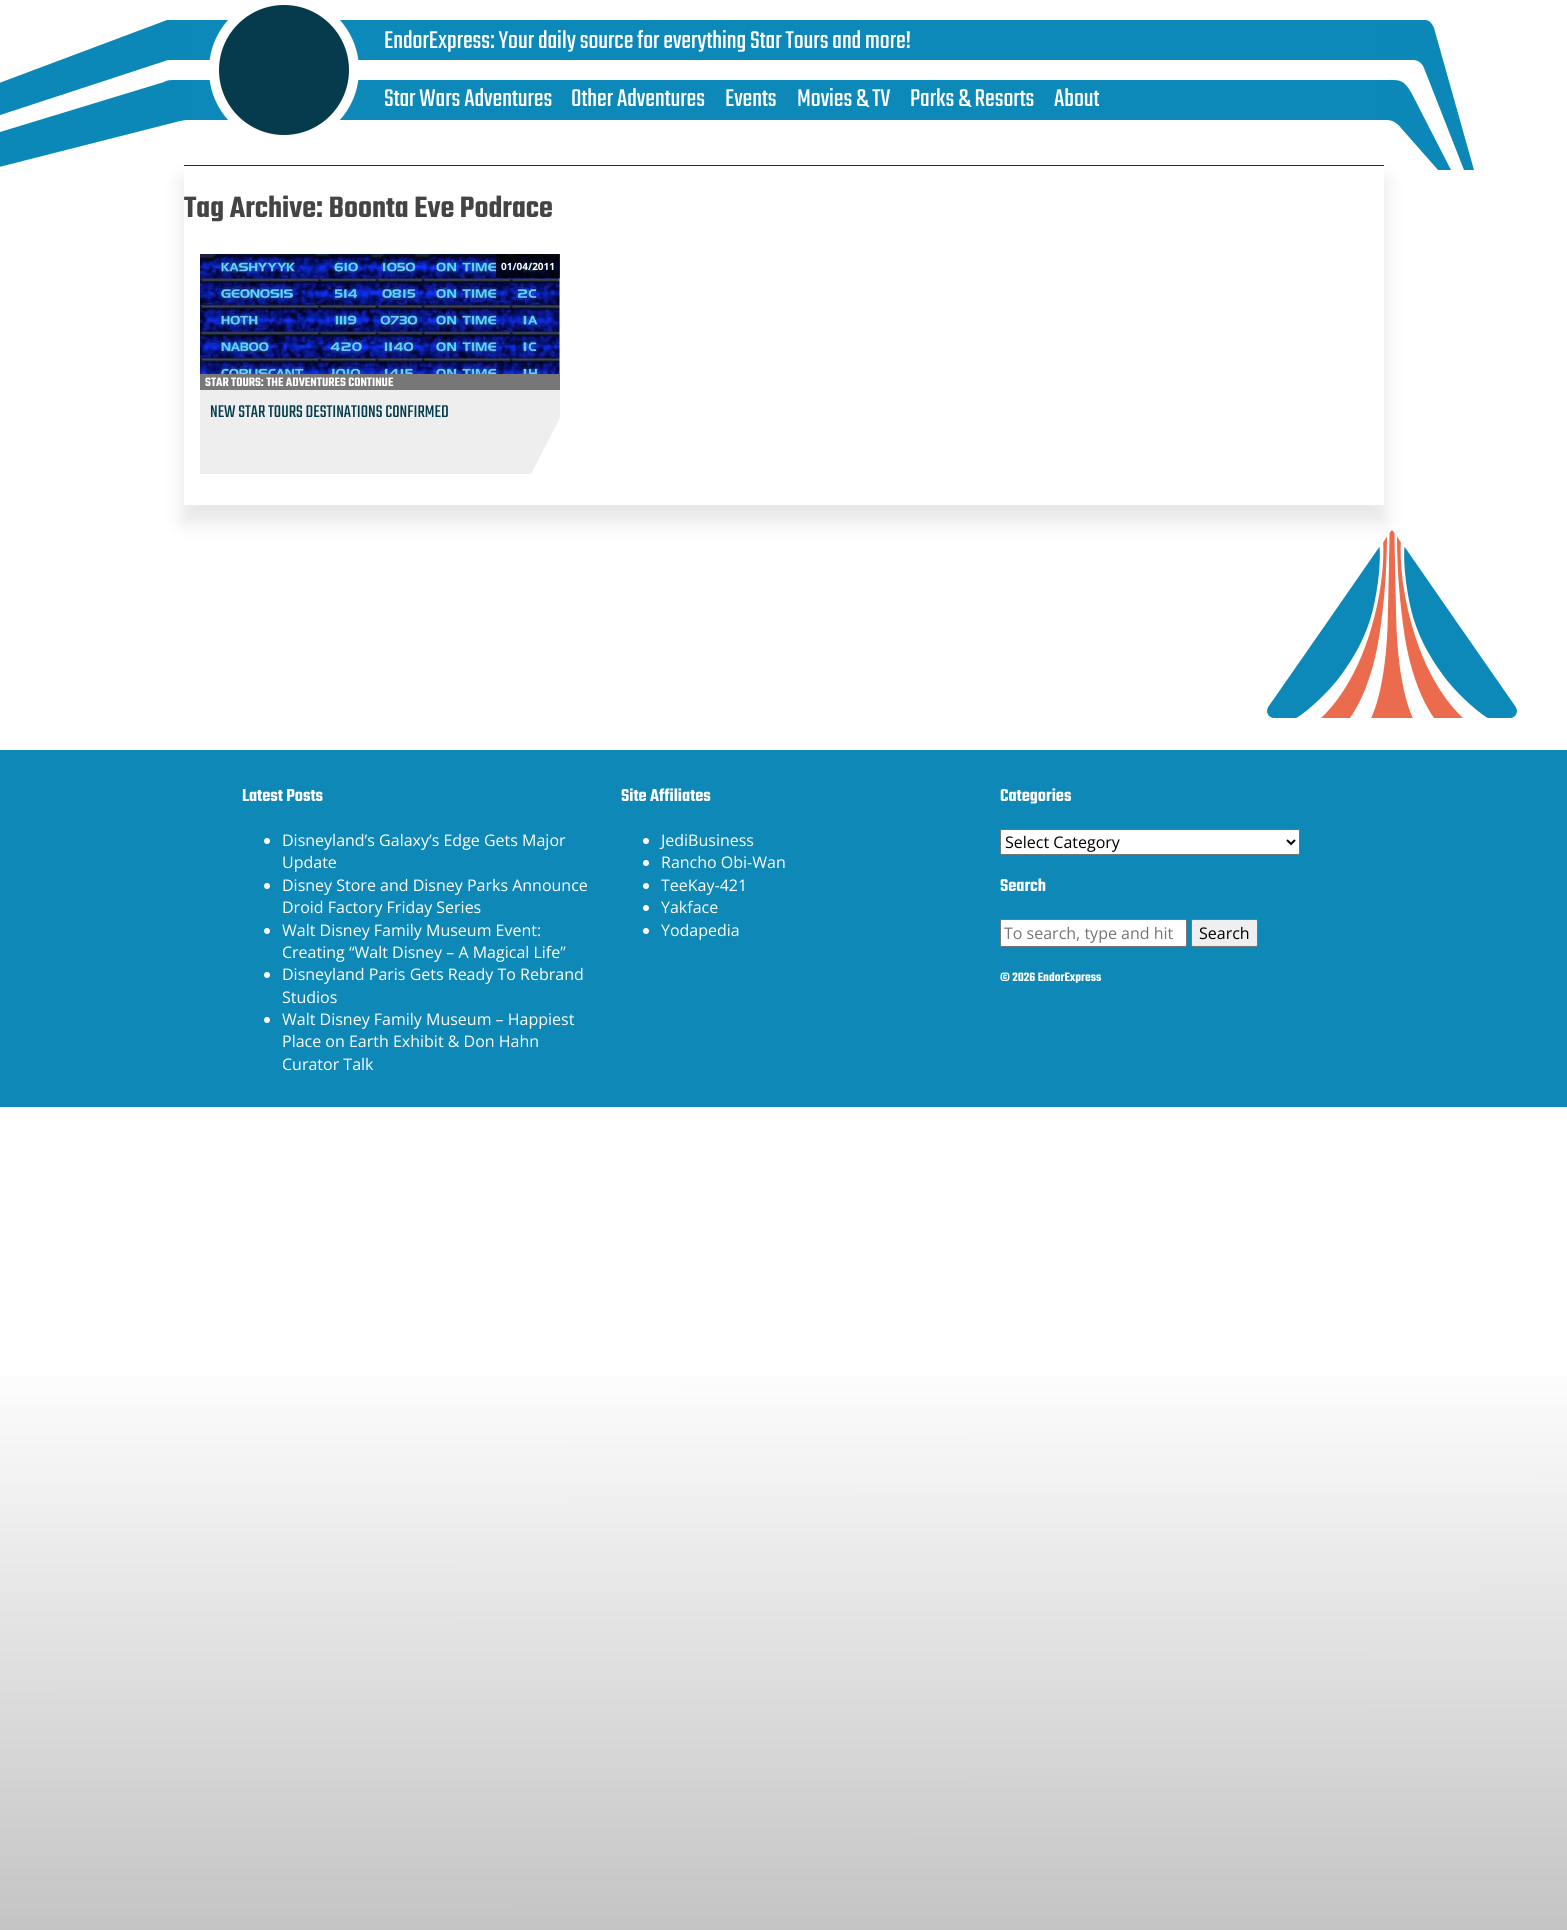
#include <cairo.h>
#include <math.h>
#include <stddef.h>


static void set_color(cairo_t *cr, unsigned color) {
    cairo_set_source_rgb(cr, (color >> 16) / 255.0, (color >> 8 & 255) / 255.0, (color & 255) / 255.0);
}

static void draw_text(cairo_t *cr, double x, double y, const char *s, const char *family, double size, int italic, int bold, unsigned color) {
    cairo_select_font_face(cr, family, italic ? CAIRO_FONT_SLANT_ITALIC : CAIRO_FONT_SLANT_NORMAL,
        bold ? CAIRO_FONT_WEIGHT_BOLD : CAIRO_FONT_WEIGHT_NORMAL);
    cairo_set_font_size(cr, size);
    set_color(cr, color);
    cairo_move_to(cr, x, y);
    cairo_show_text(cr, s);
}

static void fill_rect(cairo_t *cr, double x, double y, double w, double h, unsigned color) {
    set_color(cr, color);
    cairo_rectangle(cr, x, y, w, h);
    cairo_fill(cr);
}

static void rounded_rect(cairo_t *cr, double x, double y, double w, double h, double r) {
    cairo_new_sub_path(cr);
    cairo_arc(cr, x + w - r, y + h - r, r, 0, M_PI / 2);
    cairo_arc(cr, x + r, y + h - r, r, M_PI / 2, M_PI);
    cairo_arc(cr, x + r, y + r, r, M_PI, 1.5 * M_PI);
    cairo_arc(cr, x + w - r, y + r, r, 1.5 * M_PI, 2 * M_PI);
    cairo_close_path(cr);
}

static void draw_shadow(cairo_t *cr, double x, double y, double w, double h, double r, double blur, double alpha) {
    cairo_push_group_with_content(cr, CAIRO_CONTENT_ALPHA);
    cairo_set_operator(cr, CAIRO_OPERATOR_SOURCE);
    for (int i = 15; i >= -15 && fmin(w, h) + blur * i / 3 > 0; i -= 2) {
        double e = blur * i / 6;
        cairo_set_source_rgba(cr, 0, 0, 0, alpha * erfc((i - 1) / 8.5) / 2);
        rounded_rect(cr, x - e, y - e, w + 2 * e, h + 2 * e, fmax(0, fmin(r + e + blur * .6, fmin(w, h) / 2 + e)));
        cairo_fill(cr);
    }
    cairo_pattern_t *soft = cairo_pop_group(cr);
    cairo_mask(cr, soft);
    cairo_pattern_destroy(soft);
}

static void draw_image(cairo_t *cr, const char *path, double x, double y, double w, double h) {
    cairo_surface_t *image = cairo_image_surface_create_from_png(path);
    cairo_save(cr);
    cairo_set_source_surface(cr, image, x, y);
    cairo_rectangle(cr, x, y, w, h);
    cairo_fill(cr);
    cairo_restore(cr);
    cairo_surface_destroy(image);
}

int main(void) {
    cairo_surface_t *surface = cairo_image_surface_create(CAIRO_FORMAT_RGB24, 1567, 1930);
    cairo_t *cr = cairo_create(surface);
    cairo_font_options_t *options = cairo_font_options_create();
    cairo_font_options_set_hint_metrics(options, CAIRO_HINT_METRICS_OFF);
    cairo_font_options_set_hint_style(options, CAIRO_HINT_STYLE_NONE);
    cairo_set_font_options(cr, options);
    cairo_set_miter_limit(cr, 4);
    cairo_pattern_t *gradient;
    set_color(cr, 0xFFFFFF);
    cairo_paint(cr);
    gradient = cairo_pattern_create_linear(783, 0, 784, 1930);
    cairo_pattern_add_color_stop_rgba(gradient, 0, 1, 1, 1, 1);
    cairo_pattern_add_color_stop_rgba(gradient, 0.7, 1, 1, 1, 1);
    cairo_pattern_add_color_stop_rgba(gradient, 1, 0.769, 0.769, 0.769, 1);
    cairo_set_source(cr, gradient);
    cairo_pattern_destroy(gradient);
    cairo_rectangle(cr, 0, 1375, 1567, 555);
    cairo_fill(cr);
    set_color(cr, 0x0C88B8);
    cairo_new_path(cr);
    cairo_move_to(cr, 169, 20);
    cairo_line_to(cr, 167, 20);
    cairo_line_to(cr, -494, 268);
    cairo_line_to(cr, -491, 276);
    cairo_line_to(cr, 168, 60);
    cairo_line_to(cr, 186, 60);
    cairo_line_to(cr, 186, 20);
    cairo_close_path(cr);
    cairo_fill(cr);
    draw_image(cr, "assets/img2.png", 1267, 530, 250, 188);
    cairo_save(cr);
    cairo_set_fill_rule(cr, CAIRO_FILL_RULE_EVEN_ODD);
    cairo_new_path(cr);
    cairo_move_to(cr, 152, 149);
    cairo_line_to(cr, 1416, 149);
    cairo_line_to(cr, 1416, 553);
    cairo_line_to(cr, 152, 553);
    cairo_close_path(cr);
    cairo_move_to(cr, 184, 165);
    cairo_line_to(cr, 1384, 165);
    cairo_line_to(cr, 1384, 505);
    cairo_line_to(cr, 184, 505);
    cairo_close_path(cr);
    cairo_clip(cr);
    set_color(cr, 0x000000);
    draw_shadow(cr, 183, 180, 1202, 342, 0, 10, 0.1);
    cairo_restore(cr);
    fill_rect(cr, 184, 165, 1200, 1, 0x053C4D);
    set_color(cr, 0x0C88B8);
    cairo_new_path(cr);
    cairo_move_to(cr, 186, 120);
    cairo_line_to(cr, 180, 121);
    cairo_line_to(cr, -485, 290);
    cairo_line_to(cr, -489, 281);
    cairo_line_to(cr, 164, 82);
    cairo_curve_to(cr, 167, 80, 171, 80, 175, 80);
    cairo_line_to(cr, 186, 80);
    cairo_close_path(cr);
    cairo_fill(cr);
    fill_rect(cr, 186, 20, 1197, 40, 0x0C89B9);
    fill_rect(cr, 186, 80, 1197, 40, 0x0C89B9);
    set_color(cr, 0x053B4C);
    cairo_arc(cr, 284, 70, 70, 0, 2 * M_PI);
    cairo_fill_preserve(cr);
    set_color(cr, 0xFFFFFF);
    cairo_set_line_width(cr, 10);
    cairo_stroke(cr);
    draw_text(cr, 384, 48, "EndorExpress: Your daily source for everything Star Tours and more!", "Teko", 26.7, 0, 0, 0xFFFFFF);
    set_color(cr, 0x0C88B8);
    cairo_new_path(cr);
    cairo_move_to(cr, 1434, 28);
    cairo_curve_to(cr, 1432, 23, 1429, 20, 1425, 20);
    cairo_line_to(cr, 1383, 20);
    cairo_line_to(cr, 1383, 60);
    cairo_line_to(cr, 1413, 60);
    cairo_curve_to(cr, 1418, 60, 1422, 63, 1424, 68);
    cairo_line_to(cr, 1464, 170);
    cairo_line_to(cr, 1474, 170);
    cairo_close_path(cr);
    cairo_fill(cr);
    cairo_new_path(cr);
    cairo_move_to(cr, 1412, 94);
    cairo_curve_to(cr, 1403, 78, 1399, 80, 1383, 80);
    cairo_line_to(cr, 1383, 120);
    cairo_line_to(cr, 1387, 120);
    cairo_curve_to(cr, 1393, 120, 1398, 124, 1401, 128);
    cairo_line_to(cr, 1438, 170);
    cairo_line_to(cr, 1451, 170);
    cairo_close_path(cr);
    cairo_fill(cr);
    draw_text(cr, 384, 106, "Star Wars Adventures", "Teko", 26.7, 0, 0, 0xFFFFFF);
    draw_text(cr, 571, 106, "Other Adventures", "Teko", 26.7, 0, 0, 0xFFFFFF);
    draw_text(cr, 725, 106, "Events", "Teko", 26.7, 0, 0, 0xFFFFFF);
    draw_text(cr, 797, 106, "Movies & TV", "Teko", 26.7, 0, 0, 0xFFFFFF);
    draw_text(cr, 910, 106, "Parks & Resorts", "Teko", 26.7, 0, 0, 0xFFFFFF);
    draw_text(cr, 1054, 106, "About", "Teko", 26.7, 0, 0, 0xFFFFFF);
    draw_text(cr, 184, 217, "Tag Archive: Boonta Eve Podrace", "Teko SemiBold", 32, 0, 0, 0x444444);
    set_color(cr, 0xEEEEEE);
    cairo_new_path(cr);
    cairo_move_to(cr, 200, 254);
    cairo_line_to(cr, 560, 254);
    cairo_line_to(cr, 560, 418);
    cairo_line_to(cr, 531, 474);
    cairo_line_to(cr, 200, 474);
    cairo_close_path(cr);
    cairo_fill(cr);
    draw_image(cr, "assets/img1.png", 200, 254, 360, 120);
    cairo_set_source_rgba(cr, 0, 0, 0, 0.75);
    cairo_rectangle(cr, 496, 254, 64, 24);
    cairo_fill(cr);
    draw_text(cr, 501, 270, "01/04/2011", "Open Sans", 10, 0, 1, 0xFFFFFF);
    fill_rect(cr, 200, 374, 360, 16, 0x777777);
    draw_text(cr, 205, 386, "STAR TOURS: THE ADVENTURES CONTINUE", "Teko SemiBold", 13.3, 0, 0, 0xFFFFFF);
    draw_text(cr, 210, 417, "NEW STAR TOURS DESTINATIONS CONFIRMED", "Teko", 18.7, 0, 0, 0x053B4C);
    fill_rect(cr, 0, 750, 1567, 357, 0x0E88B7);
    draw_text(cr, 242, 801, "Latest Posts", "Teko SemiBold", 18.75, 0, 0, 0xFFFFFF);
    cairo_new_path(cr);
    cairo_arc(cr, 267, 841, 3, 0, 2 * M_PI);
    cairo_fill(cr);
    draw_text(cr, 282, 846, "Disneyland’s Galaxy’s Edge Gets Major", "Open Sans", 16, 0, 0, 0xFFFFFF);
    draw_text(cr, 282, 868, "Update", "Open Sans", 16, 0, 0, 0xFFFFFF);
    cairo_new_path(cr);
    cairo_arc(cr, 267, 886, 3, 0, 2 * M_PI);
    cairo_fill(cr);
    draw_text(cr, 282, 891, "Disney Store and Disney Parks Announce", "Open Sans", 16, 0, 0, 0xFFFFFF);
    draw_text(cr, 282, 913, "Droid Factory Friday Series", "Open Sans", 16, 0, 0, 0xFFFFFF);
    cairo_new_path(cr);
    cairo_arc(cr, 267, 931, 3, 0, 2 * M_PI);
    cairo_fill(cr);
    draw_text(cr, 282, 936, "Walt Disney Family Museum Event:", "Open Sans", 16, 0, 0, 0xFFFFFF);
    draw_text(cr, 282, 958, "Creating “Walt Disney – A Magical Life”", "Open Sans", 16, 0, 0, 0xFFFFFF);
    cairo_new_path(cr);
    cairo_arc(cr, 267, 975, 3, 0, 2 * M_PI);
    cairo_fill(cr);
    draw_text(cr, 282, 980, "Disneyland Paris Gets Ready To Rebrand", "Open Sans", 16, 0, 0, 0xFFFFFF);
    draw_text(cr, 282, 1003, "Studios", "Open Sans", 16, 0, 0, 0xFFFFFF);
    cairo_new_path(cr);
    cairo_arc(cr, 267, 1020, 3, 0, 2 * M_PI);
    cairo_fill(cr);
    draw_text(cr, 282, 1025, "Walt Disney Family Museum – Happiest", "Open Sans", 16, 0, 0, 0xFFFFFF);
    draw_text(cr, 282, 1047, "Place on Earth Exhibit & Don Hahn", "Open Sans", 16, 0, 0, 0xFFFFFF);
    draw_text(cr, 282, 1070, "Curator Talk", "Open Sans", 16, 0, 0, 0xFFFFFF);
    draw_text(cr, 621, 801, "Site Affiliates", "Teko SemiBold", 18.75, 0, 0, 0xFFFFFF);
    cairo_new_path(cr);
    cairo_arc(cr, 646, 841, 3, 0, 2 * M_PI);
    cairo_fill(cr);
    draw_text(cr, 661, 846, "JediBusiness", "Open Sans", 16, 0, 0, 0xFFFFFF);
    cairo_new_path(cr);
    cairo_arc(cr, 646, 863, 3, 0, 2 * M_PI);
    cairo_fill(cr);
    draw_text(cr, 661, 868, "Rancho Obi-Wan", "Open Sans", 16, 0, 0, 0xFFFFFF);
    cairo_new_path(cr);
    cairo_arc(cr, 646, 886, 3, 0, 2 * M_PI);
    cairo_fill(cr);
    draw_text(cr, 661, 891, "TeeKay-421", "Open Sans", 16, 0, 0, 0xFFFFFF);
    cairo_new_path(cr);
    cairo_arc(cr, 646, 908, 3, 0, 2 * M_PI);
    cairo_fill(cr);
    draw_text(cr, 661, 913, "Yakface", "Open Sans", 16, 0, 0, 0xFFFFFF);
    cairo_new_path(cr);
    cairo_arc(cr, 646, 931, 3, 0, 2 * M_PI);
    cairo_fill(cr);
    draw_text(cr, 661, 936, "Yodapedia", "Open Sans", 16, 0, 0, 0xFFFFFF);
    draw_text(cr, 1000, 801, "Categories", "Teko SemiBold", 18.75, 0, 0, 0xFFFFFF);
    rounded_rect(cr, 1000.5, 829.5, 299, 25, 1.5);
    cairo_fill_preserve(cr);
    set_color(cr, 0x767676);
    cairo_set_line_width(cr, 1);
    cairo_stroke(cr);
    cairo_new_path(cr);
    cairo_move_to(cr, 1287, 840);
    cairo_line_to(cr, 1291, 844);
    cairo_line_to(cr, 1295, 840);
    set_color(cr, 0x000000);
    cairo_set_line_width(cr, 2);
    cairo_stroke(cr);
    draw_text(cr, 1005, 848, "Select Category", "Open Sans", 16, 0, 0, 0x000000);
    draw_text(cr, 1000, 891, "Search", "Teko SemiBold", 18.75, 0, 0, 0xFFFFFF);
    rounded_rect(cr, 1000.5, 919.5, 186, 27, 1.5);
    cairo_fill_preserve(cr);
    set_color(cr, 0x767676);
    cairo_set_line_width(cr, 1);
    cairo_stroke(cr);
    draw_text(cr, 1004, 939, "To search, type and hit", "Open Sans", 16, 0, 0, 0x757575);
    set_color(cr, 0xEFEFEF);
    rounded_rect(cr, 1191.5, 919.5, 66, 27, 1.5);
    cairo_fill_preserve(cr);
    set_color(cr, 0x767676);
    cairo_stroke(cr);
    draw_text(cr, 1199, 939, "Search", "Open Sans", 16, 0, 0, 0x000000);
    draw_text(cr, 1000, 981, "© 2026 EndorExpress", "Teko SemiBold", 13.25, 0, 0, 0xFFFFFF);
    cairo_surface_write_to_png(surface, "output.png");
    cairo_font_options_destroy(options);
    cairo_destroy(cr);
    cairo_surface_destroy(surface);
    return 0;
}
